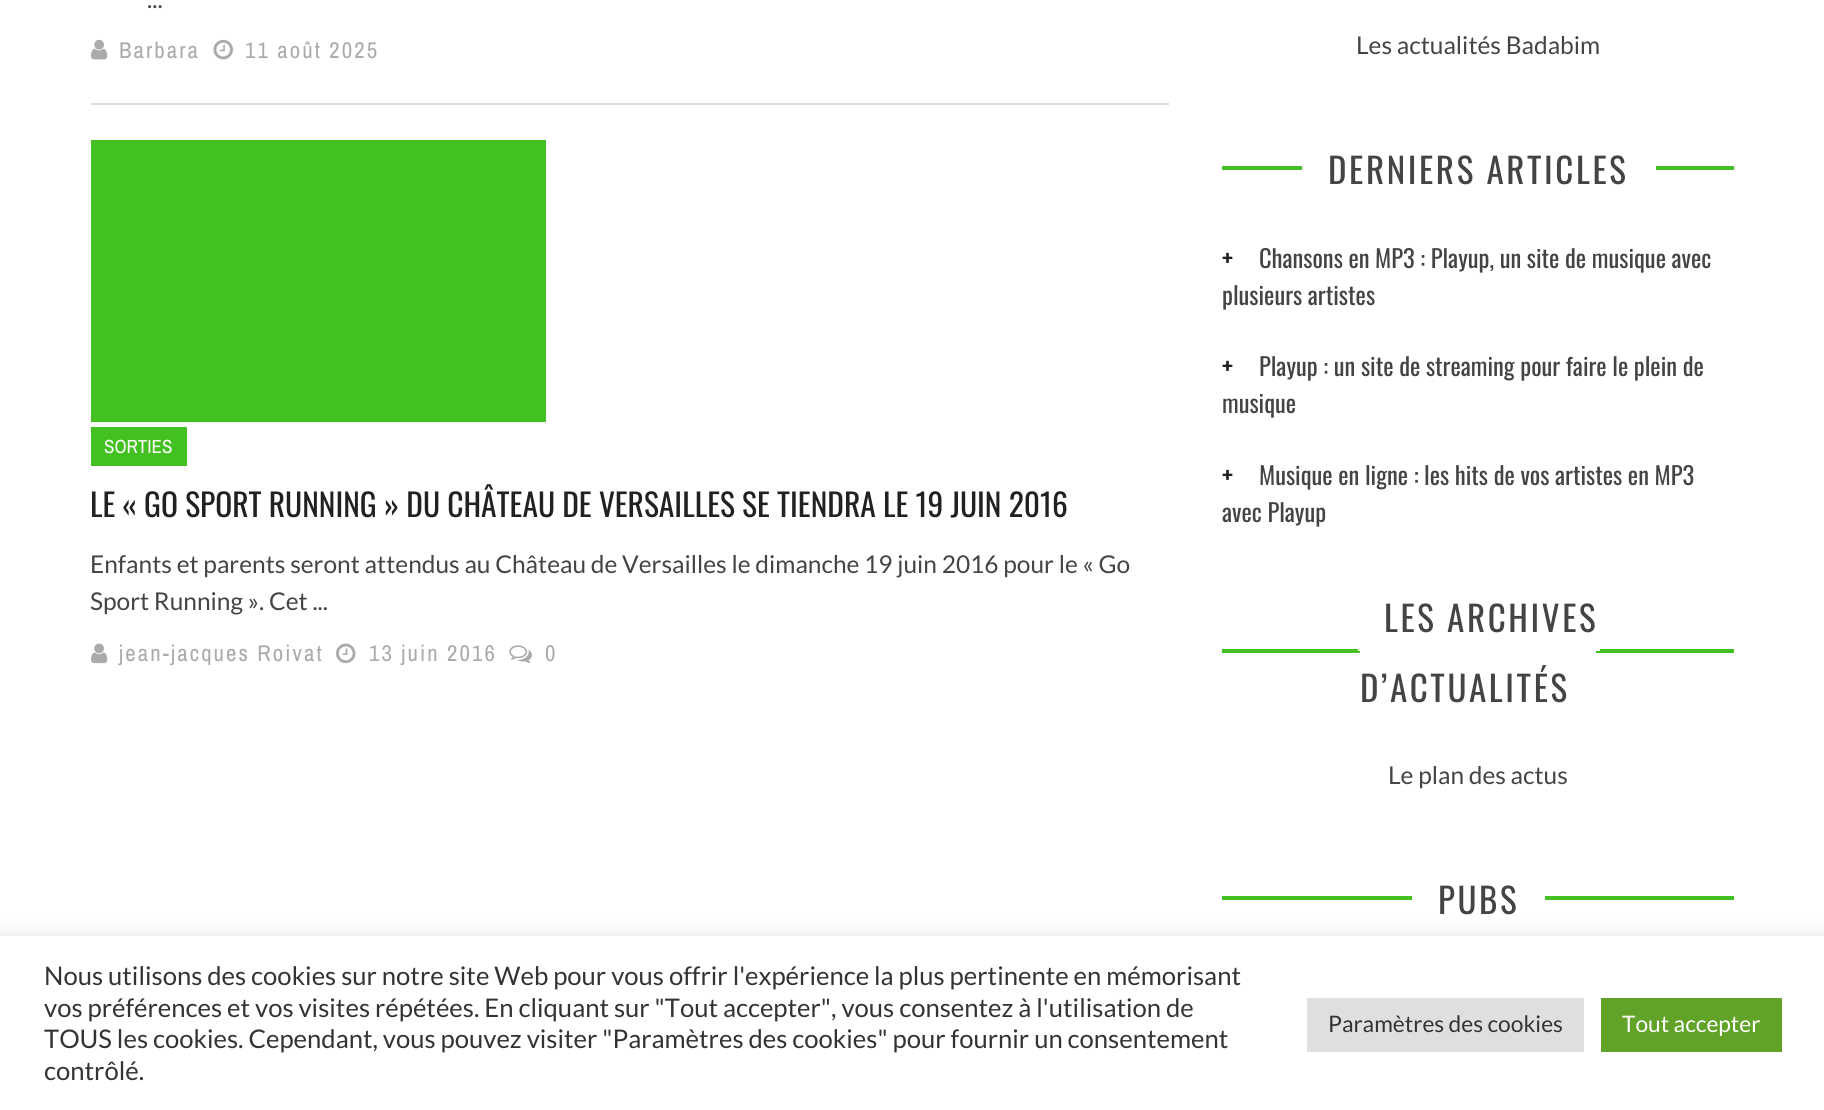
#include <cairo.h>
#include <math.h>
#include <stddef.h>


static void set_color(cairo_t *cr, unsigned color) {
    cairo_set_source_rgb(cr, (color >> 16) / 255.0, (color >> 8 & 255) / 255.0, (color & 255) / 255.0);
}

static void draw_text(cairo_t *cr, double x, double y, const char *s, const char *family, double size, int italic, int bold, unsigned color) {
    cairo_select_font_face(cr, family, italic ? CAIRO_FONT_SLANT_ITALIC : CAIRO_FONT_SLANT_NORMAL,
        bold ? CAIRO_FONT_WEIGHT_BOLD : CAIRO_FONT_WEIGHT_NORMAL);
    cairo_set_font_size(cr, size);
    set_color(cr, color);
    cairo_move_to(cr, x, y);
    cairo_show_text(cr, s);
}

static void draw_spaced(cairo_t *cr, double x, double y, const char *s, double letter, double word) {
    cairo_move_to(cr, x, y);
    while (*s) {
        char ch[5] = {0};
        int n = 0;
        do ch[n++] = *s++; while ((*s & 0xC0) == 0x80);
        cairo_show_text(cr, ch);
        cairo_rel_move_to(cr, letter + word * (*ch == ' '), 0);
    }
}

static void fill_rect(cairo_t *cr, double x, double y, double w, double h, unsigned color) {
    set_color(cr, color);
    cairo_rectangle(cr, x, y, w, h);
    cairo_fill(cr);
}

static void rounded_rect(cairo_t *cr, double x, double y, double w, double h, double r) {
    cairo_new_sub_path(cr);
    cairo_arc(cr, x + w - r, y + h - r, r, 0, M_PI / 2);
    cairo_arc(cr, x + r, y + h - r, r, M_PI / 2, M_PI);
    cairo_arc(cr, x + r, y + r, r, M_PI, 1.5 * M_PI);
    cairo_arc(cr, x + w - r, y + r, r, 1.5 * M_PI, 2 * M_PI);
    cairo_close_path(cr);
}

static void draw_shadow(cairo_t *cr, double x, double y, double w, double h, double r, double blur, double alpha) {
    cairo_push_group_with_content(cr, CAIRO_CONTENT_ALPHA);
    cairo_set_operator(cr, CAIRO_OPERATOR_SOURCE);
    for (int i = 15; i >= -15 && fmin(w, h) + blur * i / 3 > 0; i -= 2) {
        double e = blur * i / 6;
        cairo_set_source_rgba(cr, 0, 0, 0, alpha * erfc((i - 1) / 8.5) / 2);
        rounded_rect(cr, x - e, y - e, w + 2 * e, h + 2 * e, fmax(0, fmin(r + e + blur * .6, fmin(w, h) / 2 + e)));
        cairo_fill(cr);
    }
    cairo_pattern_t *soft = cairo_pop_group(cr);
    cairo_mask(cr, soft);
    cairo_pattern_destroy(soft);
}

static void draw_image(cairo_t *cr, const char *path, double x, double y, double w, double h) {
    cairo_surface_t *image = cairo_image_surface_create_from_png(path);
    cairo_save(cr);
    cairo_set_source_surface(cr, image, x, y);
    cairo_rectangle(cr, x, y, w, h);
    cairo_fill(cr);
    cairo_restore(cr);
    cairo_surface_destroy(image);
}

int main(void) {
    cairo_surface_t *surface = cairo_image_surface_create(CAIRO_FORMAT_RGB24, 1824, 1110);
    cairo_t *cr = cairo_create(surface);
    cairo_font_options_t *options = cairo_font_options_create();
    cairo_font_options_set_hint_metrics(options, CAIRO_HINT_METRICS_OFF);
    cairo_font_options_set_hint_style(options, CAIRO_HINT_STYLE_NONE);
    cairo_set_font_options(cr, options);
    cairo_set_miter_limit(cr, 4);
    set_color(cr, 0xFFFFFF);
    cairo_paint(cr);
    draw_text(cr, 147, 8, "...", "Lato", 24.5, 0, 0, 0x444444);
    draw_image(cr, "assets/img1.png", 91, 39, 17, 21);
    cairo_select_font_face(cr, "Archivo Narrow", CAIRO_FONT_SLANT_NORMAL, CAIRO_FONT_WEIGHT_NORMAL);
    cairo_set_font_size(cr, 22.75);
    set_color(cr, 0xAAAAAA);
    draw_spaced(cr, 119, 58, "Barbara", 2.1, 0);
    draw_image(cr, "assets/img2.png", 213, 39, 20, 21);
    draw_spaced(cr, 245, 58, "11 août 2025", 2.1, 0);
    fill_rect(cr, 91, 103, 1078, 2, 0xDDDDDD);
    fill_rect(cr, 91, 140, 455, 282, 0x43C120);
    fill_rect(cr, 91, 427, 96, 39, 0x43C120);
    draw_text(cr, 104, 453, "SORTIES", "Archivo Narrow", 19, 0, 0, 0xFFFFFF);
    draw_text(cr, 90, 517, "LE « GO SPORT RUNNING » DU CHÂTEAU DE VERSAILLES SE TIENDRA LE 19 JUIN 2016", "Oswald", 31.5, 0, 0, 0x212121);
    draw_text(cr, 90, 573, "Enfants et parents seront attendus au Château de Versailles le dimanche 19 juin 2016 pour le « Go", "Lato", 24.5, 0, 0, 0x444444);
    draw_text(cr, 90, 610, "Sport Running ». Cet ...", "Lato", 24.5, 0, 0, 0x444444);
    draw_image(cr, "assets/img3.png", 91, 643, 17, 21);
    cairo_select_font_face(cr, "Archivo Narrow", CAIRO_FONT_SLANT_NORMAL, CAIRO_FONT_WEIGHT_NORMAL);
    cairo_set_font_size(cr, 22.75);
    set_color(cr, 0xAAAAAA);
    draw_spaced(cr, 119, 661, "jean-jacques Roivat", 2.1, 0);
    draw_image(cr, "assets/img4.png", 336, 643, 20, 21);
    draw_spaced(cr, 369, 661, "13 juin 2016", 2.1, 0);
    draw_image(cr, "assets/img5.png", 509, 645, 23, 19);
    draw_spaced(cr, 545, 661, "0", 2.1, 0);
    draw_text(cr, 1356, 54, "Les actualités Badabim", "Lato", 24.5, 0, 0, 0x444444);
    fill_rect(cr, 1222, 166, 512, 4, 0x43C120);
    fill_rect(cr, 1302, 166, 354, 4, 0xFFFFFF);
    cairo_select_font_face(cr, "Oswald", CAIRO_FONT_SLANT_NORMAL, CAIRO_FONT_WEIGHT_NORMAL);
    cairo_set_font_size(cr, 35);
    set_color(cr, 0x444444);
    draw_spaced(cr, 1328, 184, "DERNIERS ARTICLES", 2.6, 0);
    draw_text(cr, 1222, 268, "+", "Oswald", 24.5, 0, 1, 0x212121);
    draw_text(cr, 1259, 268, "Chansons en MP3 : Playup, un site de musique avec", "Oswald", 24.5, 0, 0, 0x444444);
    draw_text(cr, 1222, 305, "plusieurs artistes", "Oswald", 24.5, 0, 0, 0x444444);
    draw_text(cr, 1222, 376, "+", "Oswald", 24.5, 0, 1, 0x212121);
    draw_text(cr, 1259, 376, "Playup : un site de streaming pour faire le plein de", "Oswald", 24.5, 0, 0, 0x444444);
    draw_text(cr, 1222, 413, "musique", "Oswald", 24.5, 0, 0, 0x444444);
    draw_text(cr, 1222, 485, "+", "Oswald", 24.5, 0, 1, 0x212121);
    draw_text(cr, 1259, 485, "Musique en ligne : les hits de vos artistes en MP3", "Oswald", 24.5, 0, 0, 0x444444);
    draw_text(cr, 1222, 522, "avec Playup", "Oswald", 24.5, 0, 0, 0x444444);
    cairo_set_font_size(cr, 35);
    draw_spaced(cr, 1384, 632, "LES ARCHIVES", 2.6, 0);
    fill_rect(cr, 1222, 649, 512, 4, 0x43C120);
    fill_rect(cr, 1358, 649, 242, 2, 0xFFFFFF);
    set_color(cr, 0x444444);
    draw_spaced(cr, 1360, 702, "D’ACTUALITÉS", 2.6, 0);
    fill_rect(cr, 1360, 651, 236, 2, 0xFFFFFF);
    draw_text(cr, 1388, 784, "Le plan des actus", "Lato", 24.5, 0, 0, 0x444444);
    fill_rect(cr, 1222, 896, 512, 4, 0x43C120);
    fill_rect(cr, 1412, 896, 133, 4, 0xFFFFFF);
    cairo_select_font_face(cr, "Oswald", CAIRO_FONT_SLANT_NORMAL, CAIRO_FONT_WEIGHT_NORMAL);
    cairo_set_font_size(cr, 35);
    set_color(cr, 0x444444);
    draw_spaced(cr, 1438, 914, "PUBS", 2.6, 0);
    set_color(cr, 0xACABAB);
    draw_shadow(cr, 0, 935, 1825, 175, 0, 9, 0.3);
    fill_rect(cr, 0, 936, 1824, 174, 0xFFFFFF);
    draw_text(cr, 44, 985, "Nous utilisons des cookies sur notre site Web pour vous offrir l'expérience la plus pertinente en mémorisant", "Lato", 25.65, 0, 0, 0x333333);
    draw_text(cr, 44, 1017, "vos préférences et vos visites répétées. En cliquant sur \"Tout accepter\", vous consentez à l'utilisation de", "Lato", 25.65, 0, 0, 0x333333);
    draw_text(cr, 44, 1048, "TOUS les cookies. Cependant, vous pouvez visiter \"Paramètres des cookies\" pour fournir un consentement", "Lato", 25.65, 0, 0, 0x333333);
    draw_text(cr, 44, 1080, "contrôlé.", "Lato", 25.65, 0, 0, 0x333333);
    fill_rect(cr, 1307, 998, 277, 54, 0xDEDFE0);
    draw_text(cr, 1328, 1032, "Paramètres des cookies", "Lato", 22.75, 0, 0, 0x333333);
    fill_rect(cr, 1601, 998, 181, 54, 0x61A229);
    draw_text(cr, 1622, 1032, "Tout accepter", "Lato", 22.75, 0, 0, 0xFFFFFF);
    cairo_surface_write_to_png(surface, "output.png");
    cairo_font_options_destroy(options);
    cairo_destroy(cr);
    cairo_surface_destroy(surface);
    return 0;
}
